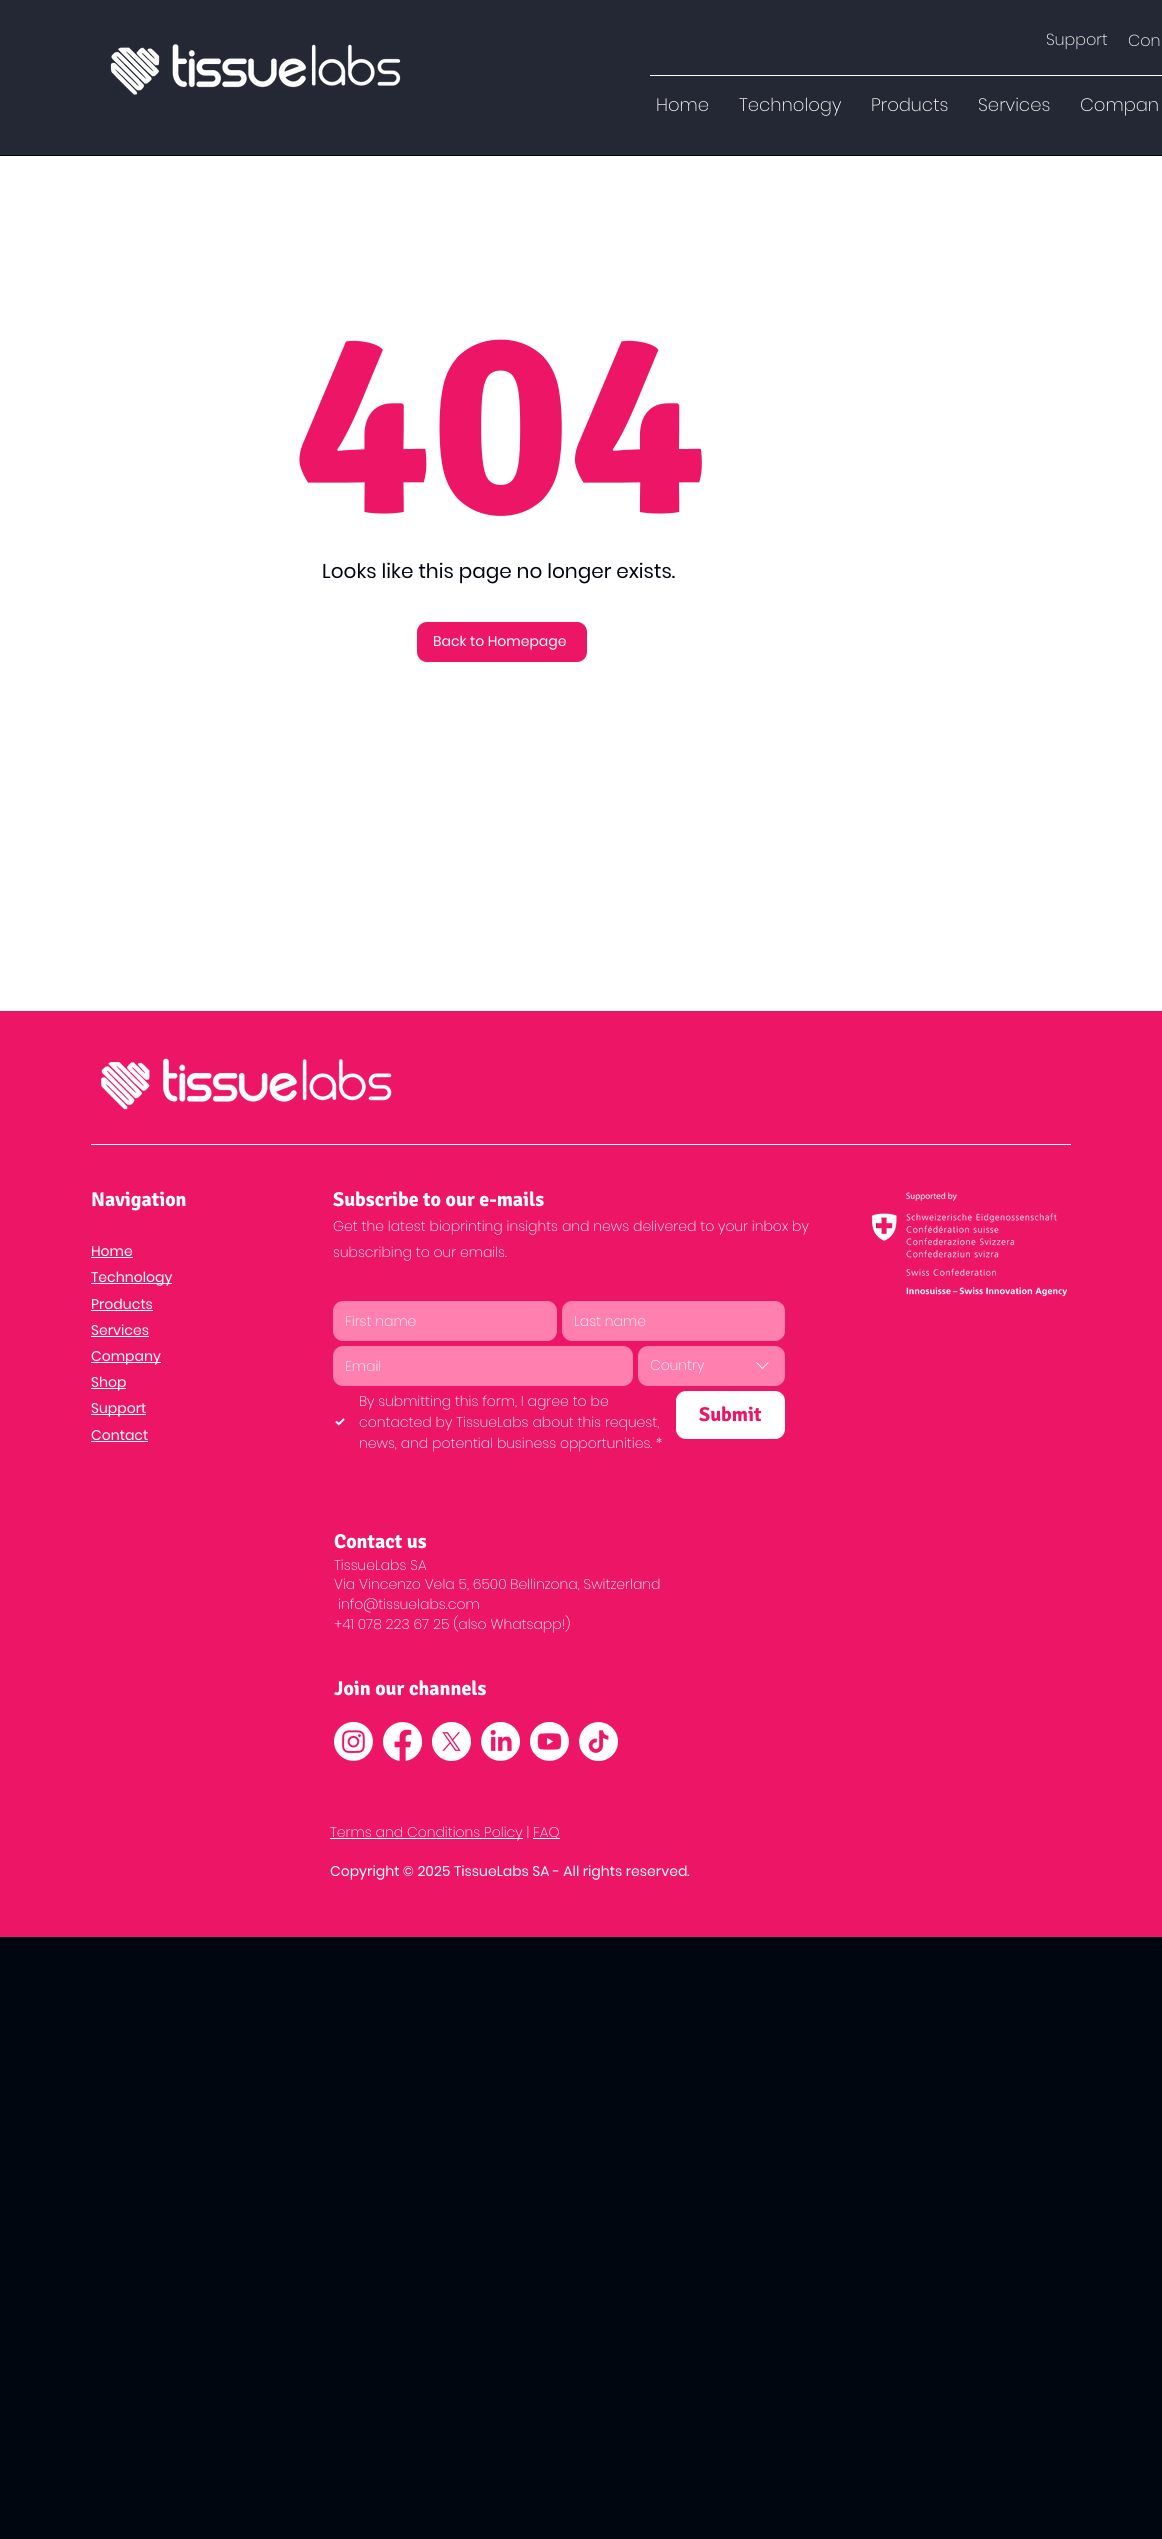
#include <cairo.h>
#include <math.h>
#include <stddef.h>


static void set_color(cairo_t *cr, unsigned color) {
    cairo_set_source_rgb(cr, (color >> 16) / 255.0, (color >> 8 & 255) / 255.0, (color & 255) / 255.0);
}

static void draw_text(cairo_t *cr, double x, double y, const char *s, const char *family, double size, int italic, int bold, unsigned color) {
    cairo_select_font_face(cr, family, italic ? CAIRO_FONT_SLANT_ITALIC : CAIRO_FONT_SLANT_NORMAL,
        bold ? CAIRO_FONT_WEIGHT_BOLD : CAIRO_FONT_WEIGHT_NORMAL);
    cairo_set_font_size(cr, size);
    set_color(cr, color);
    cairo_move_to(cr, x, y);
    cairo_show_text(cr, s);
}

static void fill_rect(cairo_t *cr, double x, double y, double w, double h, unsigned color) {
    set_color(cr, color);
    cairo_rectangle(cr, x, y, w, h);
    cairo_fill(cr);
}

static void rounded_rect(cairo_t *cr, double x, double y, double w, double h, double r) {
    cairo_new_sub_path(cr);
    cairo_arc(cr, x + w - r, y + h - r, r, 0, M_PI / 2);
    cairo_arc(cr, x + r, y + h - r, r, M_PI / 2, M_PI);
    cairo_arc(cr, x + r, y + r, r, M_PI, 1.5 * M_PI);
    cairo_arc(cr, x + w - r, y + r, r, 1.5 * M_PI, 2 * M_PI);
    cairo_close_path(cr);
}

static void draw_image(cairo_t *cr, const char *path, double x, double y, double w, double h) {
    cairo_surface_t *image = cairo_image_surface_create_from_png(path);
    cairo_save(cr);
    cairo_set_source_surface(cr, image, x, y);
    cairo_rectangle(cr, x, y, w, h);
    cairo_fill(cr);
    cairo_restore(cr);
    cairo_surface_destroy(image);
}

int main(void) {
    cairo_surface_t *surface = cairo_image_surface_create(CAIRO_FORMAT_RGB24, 1162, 2539);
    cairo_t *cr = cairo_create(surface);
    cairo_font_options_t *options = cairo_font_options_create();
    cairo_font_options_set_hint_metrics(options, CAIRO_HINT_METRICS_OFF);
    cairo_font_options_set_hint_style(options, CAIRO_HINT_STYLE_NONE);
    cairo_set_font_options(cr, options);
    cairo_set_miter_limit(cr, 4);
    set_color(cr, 0x00060F);
    cairo_paint(cr);
    fill_rect(cr, 0, 0, 1162, 155, 0x242834);
    draw_text(cr, 1046, 45, "Support", "Poppins ExtraLight", 16, 0, 0, 0xFFFFFF);
    draw_text(cr, 1128, 46, "Con", "Poppins ExtraLight", 16, 0, 0, 0xFFFFFF);
    draw_image(cr, "assets/img1.png", 110, 44, 291, 51);
    fill_rect(cr, 650, 75, 512, 1, 0xFFFFFF);
    draw_text(cr, 656, 111, "Home", "Poppins ExtraLight", 18, 0, 0, 0xFFFFFF);
    draw_text(cr, 739, 111, "Technology", "Poppins ExtraLight", 18, 0, 0, 0xFFFFFF);
    draw_text(cr, 871, 111, "Products", "Poppins ExtraLight", 18, 0, 0, 0xFFFFFF);
    draw_text(cr, 978, 111, "Services", "Poppins ExtraLight", 18, 0, 0, 0xFFFFFF);
    draw_text(cr, 1080, 111, "Compan", "Poppins ExtraLight", 18, 0, 0, 0xFFFFFF);
    fill_rect(cr, 0, 156, 1162, 855, 0xFFFFFF);
    draw_text(cr, 294, 512, "404", "Signika", 260, 0, 1, 0xED1566);
    draw_text(cr, 322, 578, "Looks like this page no longer exists.", "Poppins", 20, 0, 0, 0x00060F);
    set_color(cr, 0xED1566);
    rounded_rect(cr, 417, 622, 170, 40, 10);
    cairo_fill(cr);
    draw_text(cr, 433, 646, "Back to Homepage", "Poppins", 14, 0, 0, 0xFFFFFF);
    fill_rect(cr, 0, 1011, 1162, 926, 0xED1566);
    draw_image(cr, "assets/img2.png", 101, 1058, 291, 52);
    fill_rect(cr, 91, 1144, 980, 1, 0xFFFFFF);
    draw_text(cr, 91, 1206, "Navigation", "Signika", 20, 0, 1, 0xFFFFFF);
    draw_text(cr, 91, 1256, "Home", "Poppins", 14, 0, 0, 0xFFFFFF);
    fill_rect(cr, 91, 1257, 42, 1, 0xFFFFFF);
    fill_rect(cr, 91, 1283, 81, 1, 0xFFFFFF);
    draw_text(cr, 91, 1282, "Technology", "Poppins", 14, 0, 0, 0xFFFFFF);
    draw_text(cr, 91, 1309, "Products", "Poppins", 14, 0, 0, 0xFFFFFF);
    fill_rect(cr, 91, 1310, 62, 1, 0xFFFFFF);
    draw_text(cr, 91, 1335, "Services", "Poppins", 14, 0, 0, 0xFFFFFF);
    fill_rect(cr, 91, 1336, 58, 1, 0xFFFFFF);
    fill_rect(cr, 91, 1362, 70, 1, 0xFFFFFF);
    draw_text(cr, 91, 1361, "Company", "Poppins", 14, 0, 0, 0xFFFFFF);
    fill_rect(cr, 91, 1388, 35, 1, 0xFFFFFF);
    draw_text(cr, 91, 1387, "Shop", "Poppins", 14, 0, 0, 0xFFFFFF);
    fill_rect(cr, 91, 1414, 55, 1, 0xFFFFFF);
    draw_text(cr, 91, 1413, "Support", "Poppins", 14, 0, 0, 0xFFFFFF);
    draw_text(cr, 91, 1440, "Contact", "Poppins", 14, 0, 0, 0xFFFFFF);
    fill_rect(cr, 91, 1441, 57, 1, 0xFFFFFF);
    draw_text(cr, 333, 1206, "Subscribe to our e-mails", "Signika", 20, 0, 1, 0xFFFFFF);
    draw_text(cr, 333, 1231, "Get the latest bioprinting insights and news delivered to your inbox by", "Poppins ExtraLight", 14, 0, 0, 0xFFFFFF);
    draw_text(cr, 333, 1257, "subscribing to our emails.", "Poppins ExtraLight", 14, 0, 0, 0xFFFFFF);
    draw_image(cr, "assets/img3.png", 871, 1192, 197, 105);
    set_color(cr, 0xFF80AE);
    rounded_rect(cr, 333, 1301, 224, 40, 10);
    cairo_fill(cr);
    draw_text(cr, 345, 1326, "First name", "Poppins ExtraLight", 14, 0, 0, 0xFFFFFF);
    set_color(cr, 0xFF80AE);
    rounded_rect(cr, 562, 1301, 223, 40, 10);
    cairo_fill(cr);
    draw_text(cr, 574, 1326, "Last name", "Poppins ExtraLight", 14, 0, 0, 0xFFFFFF);
    set_color(cr, 0xFF80AE);
    rounded_rect(cr, 333, 1346, 300, 40, 10);
    cairo_fill(cr);
    draw_text(cr, 345, 1371, "Email", "Poppins ExtraLight", 14, 0, 0, 0xFFFFFF);
    set_color(cr, 0xFF80AE);
    rounded_rect(cr, 638, 1346, 147, 40, 10);
    cairo_fill(cr);
    draw_text(cr, 650, 1370, "Country", "Poppins ExtraLight", 14, 0, 0, 0xFFFFFF);
    draw_image(cr, "assets/img4.png", 756, 1362, 13, 7);
    draw_image(cr, "assets/img5.png", 335, 1418, 10, 8);
    draw_text(cr, 359, 1406, "By submitting this form, I agree to be", "Poppins ExtraLight", 14, 0, 0, 0xFFFFFF);
    draw_text(cr, 359, 1427, "contacted by TissueLabs about this request,", "Poppins ExtraLight", 14, 0, 0, 0xFFFFFF);
    draw_text(cr, 359, 1448, "news, and potential business opportunities. *", "Poppins ExtraLight", 14, 0, 0, 0xFFFFFF);
    rounded_rect(cr, 676.5, 1391.5, 108, 47, 9.5);
    cairo_fill_preserve(cr);
    cairo_set_line_width(cr, 1);
    cairo_stroke(cr);
    draw_text(cr, 699, 1421, "Submit", "Signika", 20, 0, 1, 0xED1566);
    draw_text(cr, 334, 1548, "Contact us", "Signika", 20, 0, 1, 0xFFFFFF);
    draw_text(cr, 334, 1570, "TissueLabs SA", "Poppins ExtraLight", 14, 0, 0, 0xFFFFFF);
    draw_text(cr, 334, 1589, "Via Vincenzo Vela 5, 6500 Bellinzona, Switzerland", "Poppins ExtraLight", 14, 0, 0, 0xFFFFFF);
    draw_text(cr, 338, 1609, "info@tissuelabs.com", "Poppins ExtraLight", 14, 0, 0, 0xFFFFFF);
    draw_text(cr, 334, 1629, "+41 078 223 67 25 (also Whatsapp!)", "Poppins ExtraLight", 14, 0, 0, 0xFFFFFF);
    draw_text(cr, 334, 1695, "Join our channels", "Signika", 20, 0, 1, 0xFFFFFF);
    draw_image(cr, "assets/img6.png", 334, 1722, 39, 39);
    draw_image(cr, "assets/img7.png", 383, 1722, 39, 39);
    draw_image(cr, "assets/img8.png", 432, 1722, 39, 39);
    draw_image(cr, "assets/img9.png", 481, 1722, 39, 39);
    draw_image(cr, "assets/img10.png", 530, 1722, 39, 39);
    draw_image(cr, "assets/img11.png", 579, 1722, 39, 39);
    fill_rect(cr, 330, 1838, 193, 1, 0xFFFFFF);
    draw_text(cr, 330, 1837, "Terms and Conditions Policy |", "Poppins ExtraLight", 14, 0, 0, 0xFFFFFF);
    fill_rect(cr, 533, 1838, 27, 1, 0xFFFFFF);
    draw_text(cr, 533, 1837, "FAQ", "Poppins ExtraLight", 14, 0, 0, 0xFFFFFF);
    draw_text(cr, 330, 1876, "Copyright © 2025 TissueLabs SA - All rights reserved.", "Poppins", 14, 0, 0, 0xFFFFFF);
    cairo_surface_write_to_png(surface, "output.png");
    cairo_font_options_destroy(options);
    cairo_destroy(cr);
    cairo_surface_destroy(surface);
    return 0;
}
